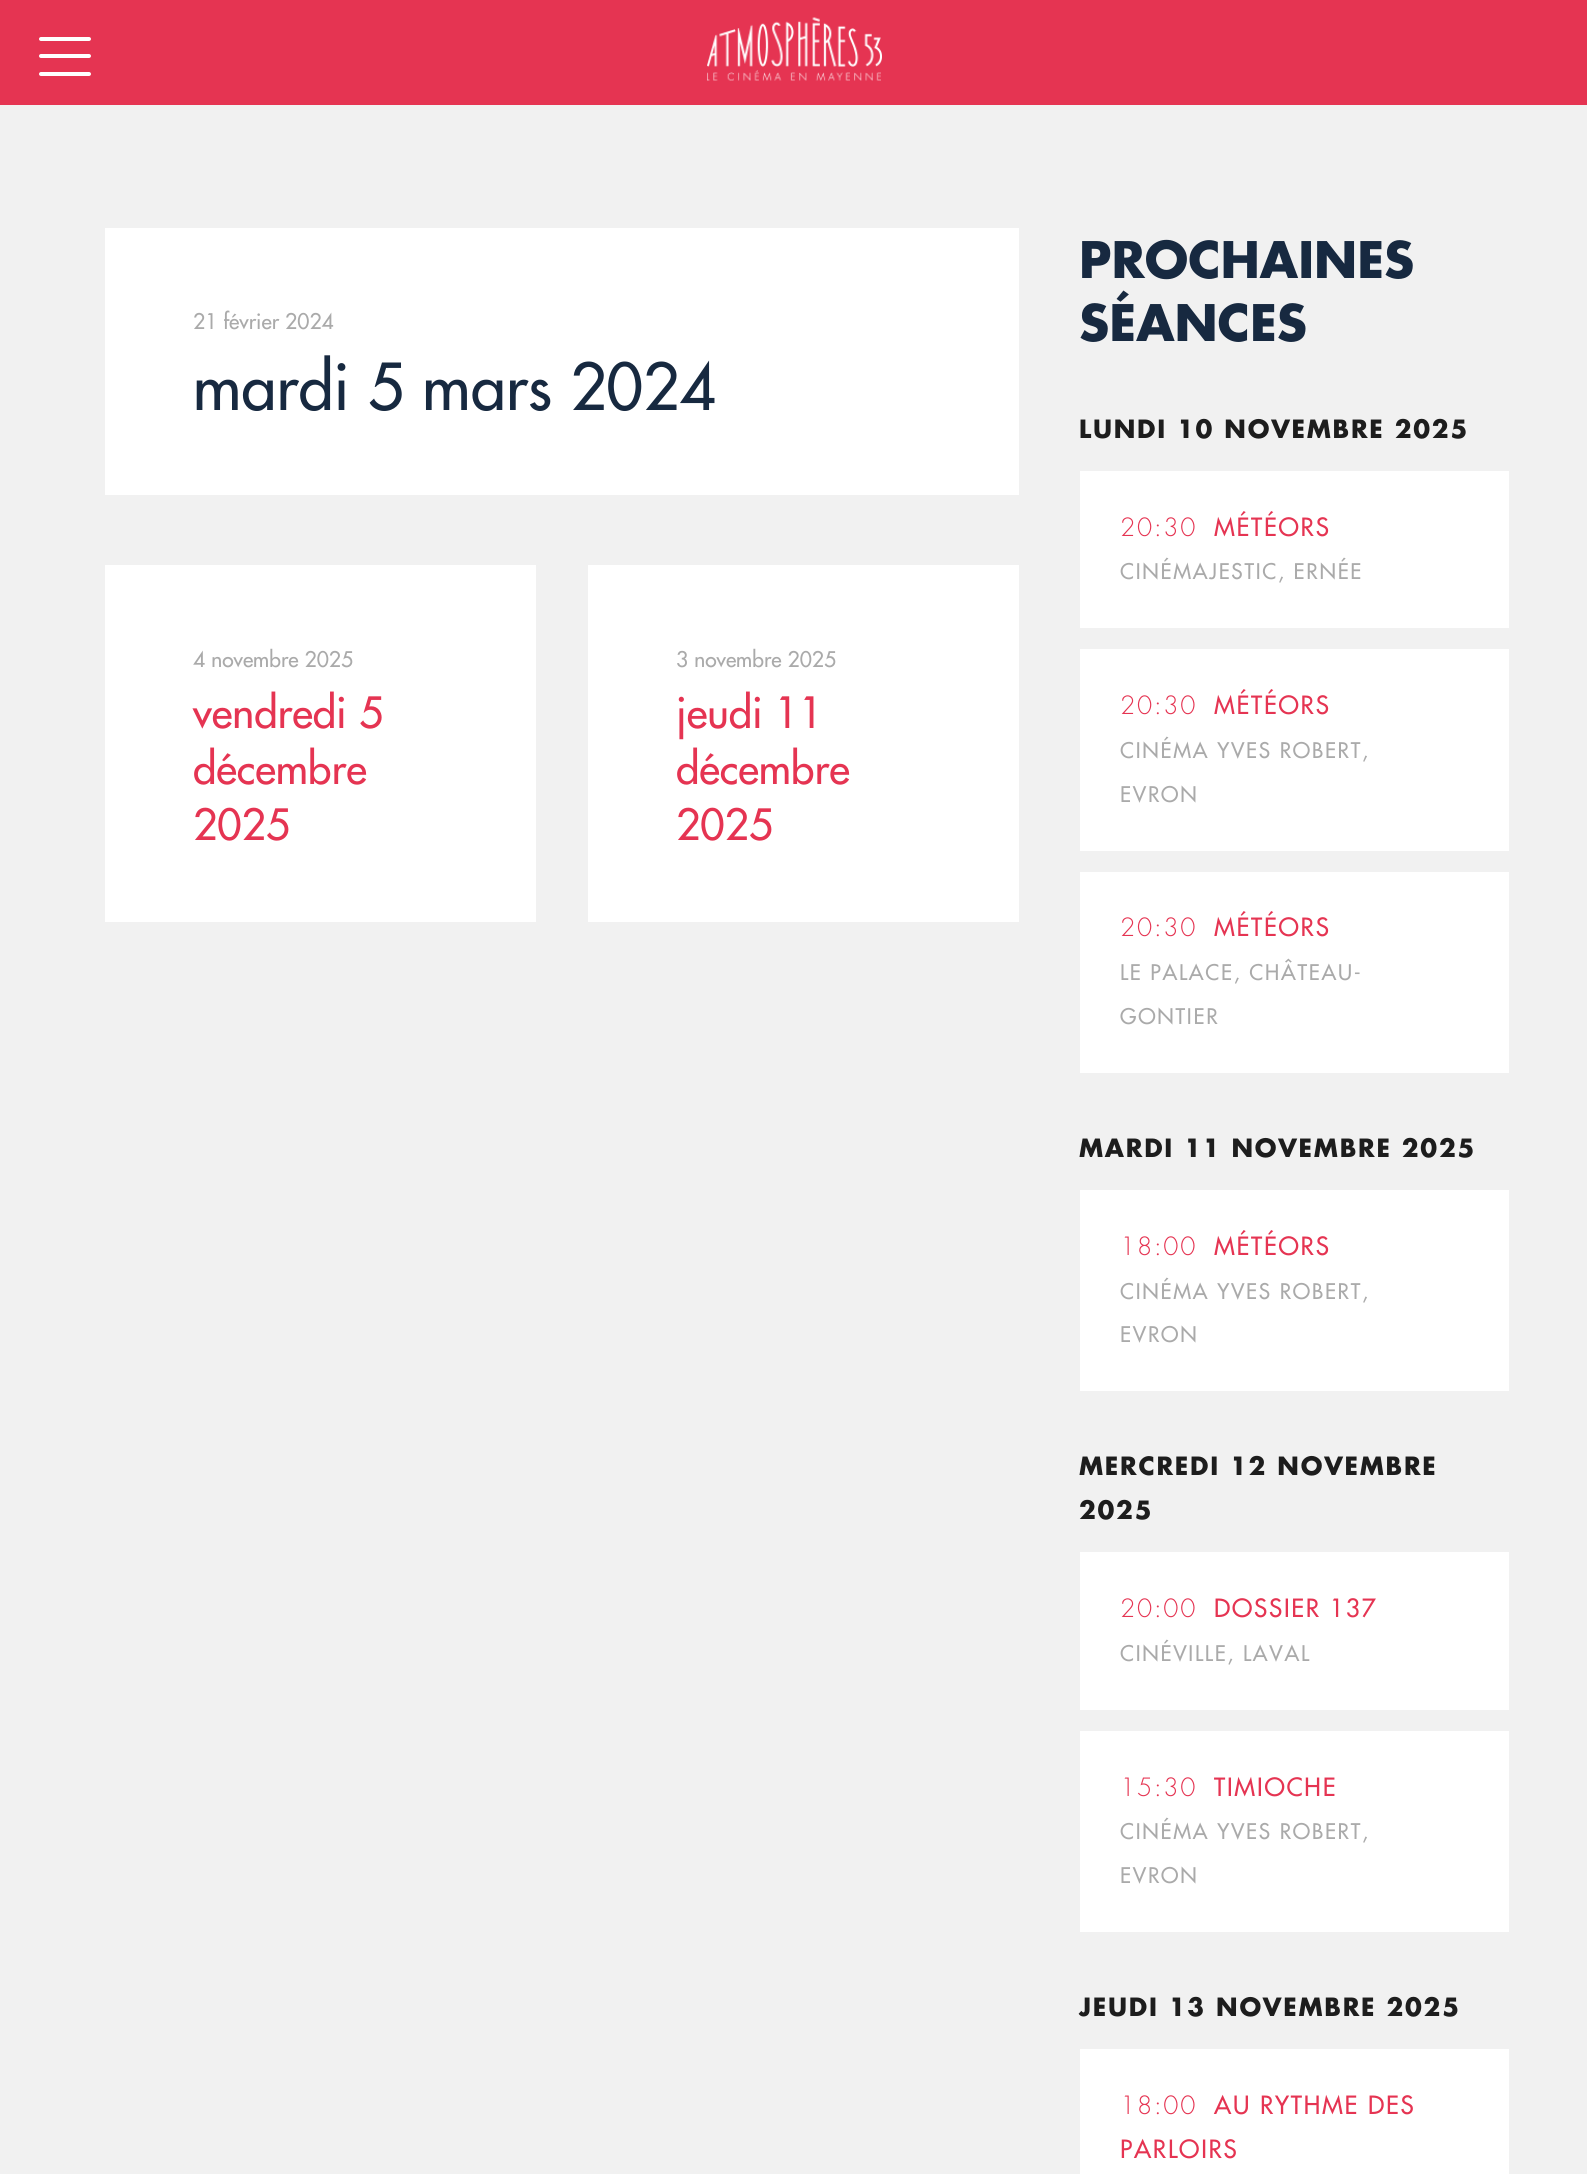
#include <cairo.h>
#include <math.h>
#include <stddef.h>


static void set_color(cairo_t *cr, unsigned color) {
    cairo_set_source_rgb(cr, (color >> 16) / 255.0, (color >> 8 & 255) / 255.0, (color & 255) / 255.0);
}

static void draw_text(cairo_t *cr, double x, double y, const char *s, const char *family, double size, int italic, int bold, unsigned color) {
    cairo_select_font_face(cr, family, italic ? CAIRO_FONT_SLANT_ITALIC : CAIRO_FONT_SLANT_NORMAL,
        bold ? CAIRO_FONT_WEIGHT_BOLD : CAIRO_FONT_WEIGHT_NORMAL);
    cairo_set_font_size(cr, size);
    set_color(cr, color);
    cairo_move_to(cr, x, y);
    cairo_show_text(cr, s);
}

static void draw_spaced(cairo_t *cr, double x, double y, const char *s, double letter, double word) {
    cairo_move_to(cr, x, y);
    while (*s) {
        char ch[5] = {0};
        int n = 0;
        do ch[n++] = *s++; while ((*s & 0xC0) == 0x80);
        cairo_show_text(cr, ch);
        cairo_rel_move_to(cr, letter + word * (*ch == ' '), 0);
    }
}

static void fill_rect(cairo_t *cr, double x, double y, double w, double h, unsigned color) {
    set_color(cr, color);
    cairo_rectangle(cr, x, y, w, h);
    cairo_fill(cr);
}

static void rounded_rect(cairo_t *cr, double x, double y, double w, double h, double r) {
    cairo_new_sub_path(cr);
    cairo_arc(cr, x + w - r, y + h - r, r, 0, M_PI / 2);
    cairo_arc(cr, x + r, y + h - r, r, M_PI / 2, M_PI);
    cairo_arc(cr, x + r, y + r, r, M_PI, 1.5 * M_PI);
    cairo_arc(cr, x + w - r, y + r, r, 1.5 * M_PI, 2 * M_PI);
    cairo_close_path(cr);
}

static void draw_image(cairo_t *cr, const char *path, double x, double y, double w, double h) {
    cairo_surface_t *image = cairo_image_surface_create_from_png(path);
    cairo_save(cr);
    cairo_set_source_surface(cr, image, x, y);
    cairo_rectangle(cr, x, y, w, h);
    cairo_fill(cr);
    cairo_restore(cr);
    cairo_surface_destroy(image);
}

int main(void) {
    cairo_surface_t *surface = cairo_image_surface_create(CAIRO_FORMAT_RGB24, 1587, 2174);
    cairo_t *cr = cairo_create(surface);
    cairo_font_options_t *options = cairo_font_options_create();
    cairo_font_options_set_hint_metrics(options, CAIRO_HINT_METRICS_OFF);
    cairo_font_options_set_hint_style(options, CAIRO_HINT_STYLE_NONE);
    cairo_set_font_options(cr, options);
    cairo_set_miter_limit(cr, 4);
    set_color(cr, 0xF1F1F1);
    cairo_paint(cr);
    fill_rect(cr, 0, 0, 1587, 105, 0xE53452);
    set_color(cr, 0xFFFFFF);
    rounded_rect(cr, 39, 37, 52, 4, 2);
    cairo_fill(cr);
    rounded_rect(cr, 39, 54, 52, 4, 2);
    cairo_fill(cr);
    rounded_rect(cr, 39, 72, 52, 4, 2);
    cairo_fill(cr);
    draw_image(cr, "assets/img1.png", 707, 17, 175, 64);
    fill_rect(cr, 105, 228, 914, 267, 0xFFFFFF);
    draw_text(cr, 193, 329, "21 février 2024", "Futura", 21, 0, 0, 0xAAAAAA);
    draw_text(cr, 193, 410, "mardi 5 mars 2024", "Futura", 63, 0, 0, 0x172940);
    fill_rect(cr, 105, 565, 431, 357, 0xFFFFFF);
    draw_text(cr, 193, 667, "4 novembre 2025", "Futura", 21, 0, 0, 0xAAAAAA);
    draw_text(cr, 193, 728, "vendredi 5", "Futura", 42, 0, 0, 0xE53452);
    draw_text(cr, 193, 784, "décembre", "Futura", 42, 0, 0, 0xE53452);
    draw_text(cr, 193, 840, "2025", "Futura", 42, 0, 0, 0xE53452);
    fill_rect(cr, 588, 565, 431, 357, 0xFFFFFF);
    draw_text(cr, 676, 667, "3 novembre 2025", "Futura", 21, 0, 0, 0xAAAAAA);
    draw_text(cr, 676, 728, "jeudi 11", "Futura", 42, 0, 0, 0xE53452);
    draw_text(cr, 676, 784, "décembre", "Futura", 42, 0, 0, 0xE53452);
    draw_text(cr, 676, 840, "2025", "Futura", 42, 0, 0, 0xE53452);
    draw_text(cr, 1079, 278, "PROCHAINES", "Futura", 49, 0, 1, 0x172940);
    draw_text(cr, 1079, 341, "SÉANCES", "Futura", 49, 0, 1, 0x172940);
    cairo_set_font_size(cr, 24.5);
    set_color(cr, 0x1D1D1D);
    draw_spaced(cr, 1079, 438, "LUNDI 10 NOVEMBRE 2025", 1.75, 0);
    fill_rect(cr, 1080, 471, 429, 157, 0xFFFFFF);
    cairo_select_font_face(cr, "Futura Light", CAIRO_FONT_SLANT_NORMAL, CAIRO_FONT_WEIGHT_NORMAL);
    set_color(cr, 0xE53452);
    draw_spaced(cr, 1120, 536, "20:30", 1.75, 0);
    cairo_select_font_face(cr, "Futura", CAIRO_FONT_SLANT_NORMAL, CAIRO_FONT_WEIGHT_NORMAL);
    draw_spaced(cr, 1214, 536, "MÉTÉORS", 1.75, 0);
    cairo_set_font_size(cr, 21);
    set_color(cr, 0xAAAAAA);
    draw_spaced(cr, 1120, 579, "CINÉMAJESTIC, ERNÉE", 1.75, 0);
    fill_rect(cr, 1080, 649, 429, 202, 0xFFFFFF);
    cairo_select_font_face(cr, "Futura Light", CAIRO_FONT_SLANT_NORMAL, CAIRO_FONT_WEIGHT_NORMAL);
    cairo_set_font_size(cr, 24.5);
    set_color(cr, 0xE53452);
    draw_spaced(cr, 1120, 714, "20:30", 1.75, 0);
    cairo_select_font_face(cr, "Futura", CAIRO_FONT_SLANT_NORMAL, CAIRO_FONT_WEIGHT_NORMAL);
    draw_spaced(cr, 1214, 714, "MÉTÉORS", 1.75, 0);
    cairo_set_font_size(cr, 21);
    set_color(cr, 0xAAAAAA);
    draw_spaced(cr, 1120, 758, "CINÉMA YVES ROBERT,", 1.75, 0);
    draw_spaced(cr, 1120, 802, "EVRON", 1.75, 0);
    fill_rect(cr, 1080, 872, 429, 201, 0xFFFFFF);
    cairo_select_font_face(cr, "Futura Light", CAIRO_FONT_SLANT_NORMAL, CAIRO_FONT_WEIGHT_NORMAL);
    cairo_set_font_size(cr, 24.5);
    set_color(cr, 0xE53452);
    draw_spaced(cr, 1120, 936, "20:30", 1.75, 0);
    cairo_select_font_face(cr, "Futura", CAIRO_FONT_SLANT_NORMAL, CAIRO_FONT_WEIGHT_NORMAL);
    draw_spaced(cr, 1214, 936, "MÉTÉORS", 1.75, 0);
    cairo_set_font_size(cr, 21);
    set_color(cr, 0xAAAAAA);
    draw_spaced(cr, 1120, 980, "LE PALACE, CHÂTEAU-", 1.75, 0);
    draw_spaced(cr, 1120, 1024, "GONTIER", 1.75, 0);
    cairo_select_font_face(cr, "Futura", CAIRO_FONT_SLANT_NORMAL, CAIRO_FONT_WEIGHT_BOLD);
    cairo_set_font_size(cr, 24.5);
    set_color(cr, 0x1D1D1D);
    draw_spaced(cr, 1079, 1157, "MARDI 11 NOVEMBRE 2025", 1.75, 0);
    fill_rect(cr, 1080, 1190, 429, 201, 0xFFFFFF);
    cairo_select_font_face(cr, "Futura Light", CAIRO_FONT_SLANT_NORMAL, CAIRO_FONT_WEIGHT_NORMAL);
    set_color(cr, 0xE53452);
    draw_spaced(cr, 1120, 1255, "18:00", 1.75, 0);
    cairo_select_font_face(cr, "Futura", CAIRO_FONT_SLANT_NORMAL, CAIRO_FONT_WEIGHT_NORMAL);
    draw_spaced(cr, 1214, 1255, "MÉTÉORS", 1.75, 0);
    cairo_set_font_size(cr, 21);
    set_color(cr, 0xAAAAAA);
    draw_spaced(cr, 1120, 1299, "CINÉMA YVES ROBERT,", 1.75, 0);
    draw_spaced(cr, 1120, 1342, "EVRON", 1.75, 0);
    cairo_select_font_face(cr, "Futura", CAIRO_FONT_SLANT_NORMAL, CAIRO_FONT_WEIGHT_BOLD);
    cairo_set_font_size(cr, 24.5);
    set_color(cr, 0x1D1D1D);
    draw_spaced(cr, 1079, 1475, "MERCREDI 12 NOVEMBRE", 1.75, 0);
    draw_spaced(cr, 1079, 1519, "2025", 1.75, 0);
    fill_rect(cr, 1080, 1552, 429, 158, 0xFFFFFF);
    cairo_select_font_face(cr, "Futura Light", CAIRO_FONT_SLANT_NORMAL, CAIRO_FONT_WEIGHT_NORMAL);
    set_color(cr, 0xE53452);
    draw_spaced(cr, 1120, 1617, "20:00", 1.75, 0);
    cairo_select_font_face(cr, "Futura", CAIRO_FONT_SLANT_NORMAL, CAIRO_FONT_WEIGHT_NORMAL);
    draw_spaced(cr, 1214, 1617, "DOSSIER 137", 1.75, 0);
    cairo_set_font_size(cr, 21);
    set_color(cr, 0xAAAAAA);
    draw_spaced(cr, 1120, 1661, "CINÉVILLE, LAVAL", 1.75, 0);
    fill_rect(cr, 1080, 1731, 429, 201, 0xFFFFFF);
    cairo_select_font_face(cr, "Futura Light", CAIRO_FONT_SLANT_NORMAL, CAIRO_FONT_WEIGHT_NORMAL);
    cairo_set_font_size(cr, 24.5);
    set_color(cr, 0xE53452);
    draw_spaced(cr, 1120, 1796, "15:30", 1.75, 0);
    cairo_select_font_face(cr, "Futura", CAIRO_FONT_SLANT_NORMAL, CAIRO_FONT_WEIGHT_NORMAL);
    draw_spaced(cr, 1214, 1796, "TIMIOCHE", 1.75, 0);
    cairo_set_font_size(cr, 21);
    set_color(cr, 0xAAAAAA);
    draw_spaced(cr, 1120, 1839, "CINÉMA YVES ROBERT,", 1.75, 0);
    draw_spaced(cr, 1120, 1883, "EVRON", 1.75, 0);
    cairo_select_font_face(cr, "Futura", CAIRO_FONT_SLANT_NORMAL, CAIRO_FONT_WEIGHT_BOLD);
    cairo_set_font_size(cr, 24.5);
    set_color(cr, 0x1D1D1D);
    draw_spaced(cr, 1079, 2016, "JEUDI 13 NOVEMBRE 2025", 1.75, 0);
    fill_rect(cr, 1080, 2049, 429, 125, 0xFFFFFF);
    cairo_select_font_face(cr, "Futura Light", CAIRO_FONT_SLANT_NORMAL, CAIRO_FONT_WEIGHT_NORMAL);
    set_color(cr, 0xE53452);
    draw_spaced(cr, 1120, 2114, "18:00", 1.75, 0);
    cairo_select_font_face(cr, "Futura", CAIRO_FONT_SLANT_NORMAL, CAIRO_FONT_WEIGHT_NORMAL);
    draw_spaced(cr, 1214, 2114, "AU RYTHME DES", 1.75, 0);
    draw_spaced(cr, 1120, 2158, "PARLOIRS", 1.75, 0);
    cairo_surface_write_to_png(surface, "output.png");
    cairo_font_options_destroy(options);
    cairo_destroy(cr);
    cairo_surface_destroy(surface);
    return 0;
}
